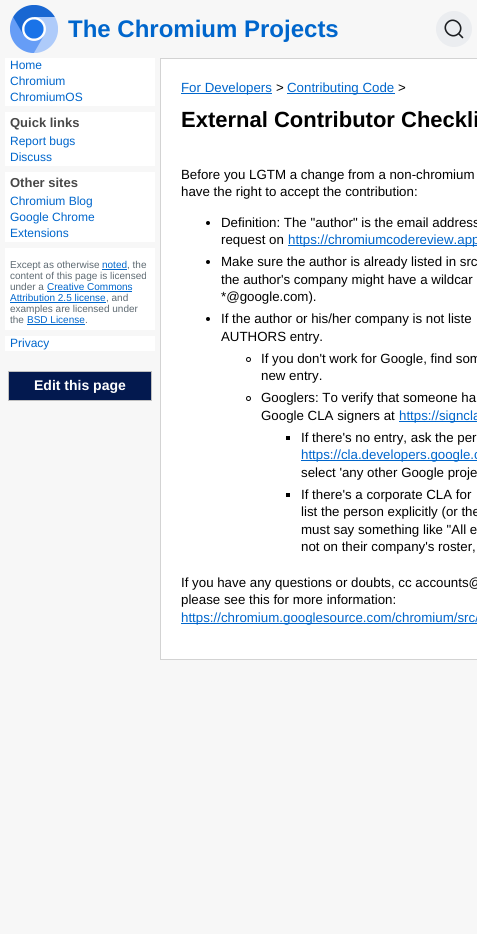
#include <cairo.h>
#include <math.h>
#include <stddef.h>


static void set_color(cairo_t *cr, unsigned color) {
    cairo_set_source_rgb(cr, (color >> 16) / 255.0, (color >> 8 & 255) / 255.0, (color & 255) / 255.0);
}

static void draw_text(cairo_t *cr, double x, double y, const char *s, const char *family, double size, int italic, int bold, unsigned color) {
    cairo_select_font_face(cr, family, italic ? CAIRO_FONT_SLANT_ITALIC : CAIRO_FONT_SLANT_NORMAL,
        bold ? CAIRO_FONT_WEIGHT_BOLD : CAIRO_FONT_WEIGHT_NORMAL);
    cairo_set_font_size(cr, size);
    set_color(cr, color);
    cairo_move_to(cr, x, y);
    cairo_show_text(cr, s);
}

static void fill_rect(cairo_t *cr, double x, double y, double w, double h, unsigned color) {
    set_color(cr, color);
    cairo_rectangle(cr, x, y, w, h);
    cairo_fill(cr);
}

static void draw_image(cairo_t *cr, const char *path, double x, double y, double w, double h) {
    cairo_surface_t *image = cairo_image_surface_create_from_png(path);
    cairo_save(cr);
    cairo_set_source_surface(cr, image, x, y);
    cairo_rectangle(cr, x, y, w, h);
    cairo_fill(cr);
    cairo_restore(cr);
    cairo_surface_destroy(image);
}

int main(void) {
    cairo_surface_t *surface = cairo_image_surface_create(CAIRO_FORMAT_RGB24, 477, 934);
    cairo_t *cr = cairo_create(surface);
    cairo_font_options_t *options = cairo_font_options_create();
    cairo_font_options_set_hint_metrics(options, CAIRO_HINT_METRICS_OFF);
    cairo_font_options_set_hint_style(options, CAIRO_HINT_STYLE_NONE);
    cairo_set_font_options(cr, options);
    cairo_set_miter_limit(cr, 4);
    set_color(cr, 0xF7F7F7);
    cairo_paint(cr);
    draw_image(cr, "assets/img1.png", 10, 5, 48, 48);
    draw_text(cr, 68, 37, "The Chromium Projects", "Liberation Sans", 24, 0, 1, 0x0066CC);
    set_color(cr, 0xEBEDF0);
    cairo_new_path(cr);
    cairo_arc(cr, 454, 29, 18, 0, 2 * M_PI);
    cairo_fill(cr);
    cairo_new_path(cr);
    cairo_move_to(cr, 458.5, 33.5);
    cairo_line_to(cr, 462.5, 37.5);
    cairo_line_to(cr, 458.5, 33.5);
    cairo_curve_to(cr, 451.5, 40.5, 440.5, 29.5, 447.5, 22.5);
    cairo_curve_to(cr, 454.5, 15.5, 465.5, 26.5, 458.5, 33.5);
    cairo_close_path(cr);
    set_color(cr, 0x1C1E21);
    cairo_set_line_width(cr, 1.6);
    cairo_set_line_cap(cr, CAIRO_LINE_CAP_ROUND);
    cairo_set_line_join(cr, CAIRO_LINE_JOIN_ROUND);
    cairo_stroke(cr);
    fill_rect(cr, 5, 58, 150, 48, 0xFFFFFF);
    draw_text(cr, 10, 69, "Home", "Liberation Sans", 12, 0, 0, 0x0066CC);
    draw_text(cr, 10, 85, "Chromium", "Liberation Sans", 12, 0, 0, 0x0066CC);
    draw_text(cr, 10, 101, "ChromiumOS", "Liberation Sans", 12, 0, 0, 0x0066CC);
    fill_rect(cr, 5, 112, 150, 54, 0xFFFFFF);
    draw_text(cr, 10, 127, "Quick links", "Liberation Sans", 13, 0, 1, 0x484848);
    draw_text(cr, 10, 145, "Report bugs", "Liberation Sans", 12, 0, 0, 0x0066CC);
    draw_text(cr, 10, 161, "Discuss", "Liberation Sans", 12, 0, 0, 0x0066CC);
    fill_rect(cr, 5, 172, 150, 70, 0xFFFFFF);
    draw_text(cr, 10, 187, "Other sites", "Liberation Sans", 13, 0, 1, 0x484848);
    draw_text(cr, 10, 205, "Chromium Blog", "Liberation Sans", 12, 0, 0, 0x0066CC);
    draw_text(cr, 10, 221, "Google Chrome", "Liberation Sans", 12, 0, 0, 0x0066CC);
    draw_text(cr, 10, 237, "Extensions", "Liberation Sans", 12, 0, 0, 0x0066CC);
    fill_rect(cr, 5, 248, 150, 82, 0xFFFFFF);
    draw_text(cr, 10, 268, "Except as otherwise", "Liberation Sans", 10, 0, 0, 0x5E6A72);
    draw_text(cr, 102, 268, "noted", "Liberation Sans", 10, 0, 0, 0x0066CC);
    fill_rect(cr, 102, 269, 25, 1, 0x0066CC);
    draw_text(cr, 127, 268, ", the", "Liberation Sans", 10, 0, 0, 0x5E6A72);
    draw_text(cr, 10, 279, "content of this page is licensed", "Liberation Sans", 10, 0, 0, 0x5E6A72);
    draw_text(cr, 10, 290, "under a", "Liberation Sans", 10, 0, 0, 0x5E6A72);
    draw_text(cr, 47, 290, "Creative Commons", "Liberation Sans", 10, 0, 0, 0x0066CC);
    fill_rect(cr, 47, 291, 85, 1, 0x0066CC);
    draw_text(cr, 10, 301, "Attribution 2.5 license", "Liberation Sans", 10, 0, 0, 0x0066CC);
    fill_rect(cr, 10, 302, 96, 1, 0x0066CC);
    draw_text(cr, 106, 301, ", and", "Liberation Sans", 10, 0, 0, 0x5E6A72);
    draw_text(cr, 10, 312, "examples are licensed under", "Liberation Sans", 10, 0, 0, 0x5E6A72);
    draw_text(cr, 10, 323, "the", "Liberation Sans", 10, 0, 0, 0x5E6A72);
    draw_text(cr, 27, 323, "BSD License", "Liberation Sans", 10, 0, 0, 0x0066CC);
    fill_rect(cr, 27, 324, 58, 1, 0x0066CC);
    draw_text(cr, 85, 323, ".", "Liberation Sans", 10, 0, 0, 0x5E6A72);
    fill_rect(cr, 5, 336, 150, 15, 0xFFFFFF);
    draw_text(cr, 10, 347, "Privacy", "Liberation Sans", 12, 0, 0, 0x0066CC);
    set_color(cr, 0x03194F);
    cairo_rectangle(cr, 8.5, 371.5, 143, 29);
    cairo_fill_preserve(cr);
    set_color(cr, 0xC0C0C0);
    cairo_set_line_width(cr, 1);
    cairo_set_line_cap(cr, CAIRO_LINE_CAP_BUTT);
    cairo_set_line_join(cr, CAIRO_LINE_JOIN_MITER);
    cairo_stroke(cr);
    draw_text(cr, 34, 390, "Edit this page", "Liberation Sans", 14, 0, 1, 0xFFFFFF);
    cairo_rectangle(cr, 160.5, 58.5, 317, 601);
    cairo_fill_preserve(cr);
    set_color(cr, 0xD3D3D3);
    cairo_stroke(cr);
    fill_rect(cr, 181, 93, 91, 1, 0x0066CC);
    draw_text(cr, 181, 92, "For Developers", "Liberation Sans", 13.3, 0, 0, 0x0066CC);
    draw_text(cr, 276, 92, ">", "Liberation Sans", 13.3, 0, 0, 0x000000);
    fill_rect(cr, 287, 93, 108, 1, 0x0066CC);
    draw_text(cr, 287, 92, "Contributing Code", "Liberation Sans", 13.3, 0, 0, 0x0066CC);
    draw_text(cr, 398, 92, ">", "Liberation Sans", 13.3, 0, 0, 0x000000);
    draw_text(cr, 181, 127, "External Contributor Checkli", "Liberation Sans", 22, 0, 1, 0x000000);
    draw_text(cr, 181, 179, "Before you LGTM a change from a non-chromium", "Liberation Sans", 13.3, 0, 0, 0x000000);
    draw_text(cr, 181, 196, "have the right to accept the contribution:", "Liberation Sans", 13.3, 0, 0, 0x000000);
    cairo_new_path(cr);
    cairo_arc(cr, 208, 223, 2, 0, 2 * M_PI);
    cairo_fill(cr);
    draw_text(cr, 221, 227, "Definition: The \"author\" is the email address", "Liberation Sans", 13.3, 0, 0, 0x000000);
    draw_text(cr, 221, 244, "request on", "Liberation Sans", 13.3, 0, 0, 0x000000);
    fill_rect(cr, 288, 245, 189, 1, 0x0066CC);
    draw_text(cr, 288, 244, "https://chromiumcodereview.app", "Liberation Sans", 13.3, 0, 0, 0x0066CC);
    set_color(cr, 0x000000);
    cairo_new_path(cr);
    cairo_arc(cr, 208, 262, 2, 0, 2 * M_PI);
    cairo_fill(cr);
    draw_text(cr, 221, 266, "Make sure the author is already listed in src", "Liberation Sans", 13.3, 0, 0, 0x000000);
    draw_text(cr, 221, 284, "the author's company might have a wildcar", "Liberation Sans", 13.3, 0, 0, 0x000000);
    draw_text(cr, 221, 301, "*@google.com).", "Liberation Sans", 13.3, 0, 0, 0x000000);
    cairo_new_path(cr);
    cairo_arc(cr, 208, 319, 2, 0, 2 * M_PI);
    cairo_fill(cr);
    draw_text(cr, 221, 323, "If the author or his/her company is not liste", "Liberation Sans", 13.3, 0, 0, 0x000000);
    draw_text(cr, 221, 341, "AUTHORS entry.", "Liberation Sans", 13.3, 0, 0, 0x000000);
    cairo_new_path(cr);
    cairo_arc(cr, 248.5, 359.5, 2, 0, 2 * M_PI);
    cairo_stroke(cr);
    draw_text(cr, 261, 363, "If you don't work for Google, find som", "Liberation Sans", 13.3, 0, 0, 0x000000);
    draw_text(cr, 261, 380, "new entry.", "Liberation Sans", 13.3, 0, 0, 0x000000);
    cairo_new_path(cr);
    cairo_arc(cr, 248.5, 398.5, 2, 0, 2 * M_PI);
    cairo_stroke(cr);
    draw_text(cr, 261, 402, "Googlers: To verify that someone ha", "Liberation Sans", 13.3, 0, 0, 0x000000);
    draw_text(cr, 261, 420, "Google CLA signers at", "Liberation Sans", 13.3, 0, 0, 0x000000);
    fill_rect(cr, 399, 421, 78, 1, 0x0066CC);
    draw_text(cr, 399, 420, "https://signcla", "Liberation Sans", 13.3, 0, 0, 0x0066CC);
    fill_rect(cr, 286, 436, 4, 4, 0x000000);
    draw_text(cr, 301, 442, "If there's no entry, ask the per", "Liberation Sans", 13.3, 0, 0, 0x000000);
    fill_rect(cr, 301, 460, 176, 1, 0x0066CC);
    draw_text(cr, 301, 459, "https://cla.developers.google.c", "Liberation Sans", 13.3, 0, 0, 0x0066CC);
    draw_text(cr, 301, 477, "select 'any other Google proje", "Liberation Sans", 13.3, 0, 0, 0x000000);
    fill_rect(cr, 286, 493, 4, 4, 0x000000);
    draw_text(cr, 301, 499, "If there's a corporate CLA for", "Liberation Sans", 13.3, 0, 0, 0x000000);
    draw_text(cr, 301, 516, "list the person explicitly (or the", "Liberation Sans", 13.3, 0, 0, 0x000000);
    draw_text(cr, 301, 534, "must say something like \"All e", "Liberation Sans", 13.3, 0, 0, 0x000000);
    draw_text(cr, 301, 551, "not on their company's roster,", "Liberation Sans", 13.3, 0, 0, 0x000000);
    draw_text(cr, 181, 587, "If you have any questions or doubts, cc accounts@", "Liberation Sans", 13.3, 0, 0, 0x000000);
    draw_text(cr, 181, 604, "please see this for more information:", "Liberation Sans", 13.3, 0, 0, 0x000000);
    fill_rect(cr, 181, 623, 296, 1, 0x0066CC);
    draw_text(cr, 181, 622, "https://chromium.googlesource.com/chromium/src/", "Liberation Sans", 13.3, 0, 0, 0x0066CC);
    cairo_surface_write_to_png(surface, "output.png");
    cairo_font_options_destroy(options);
    cairo_destroy(cr);
    cairo_surface_destroy(surface);
    return 0;
}
